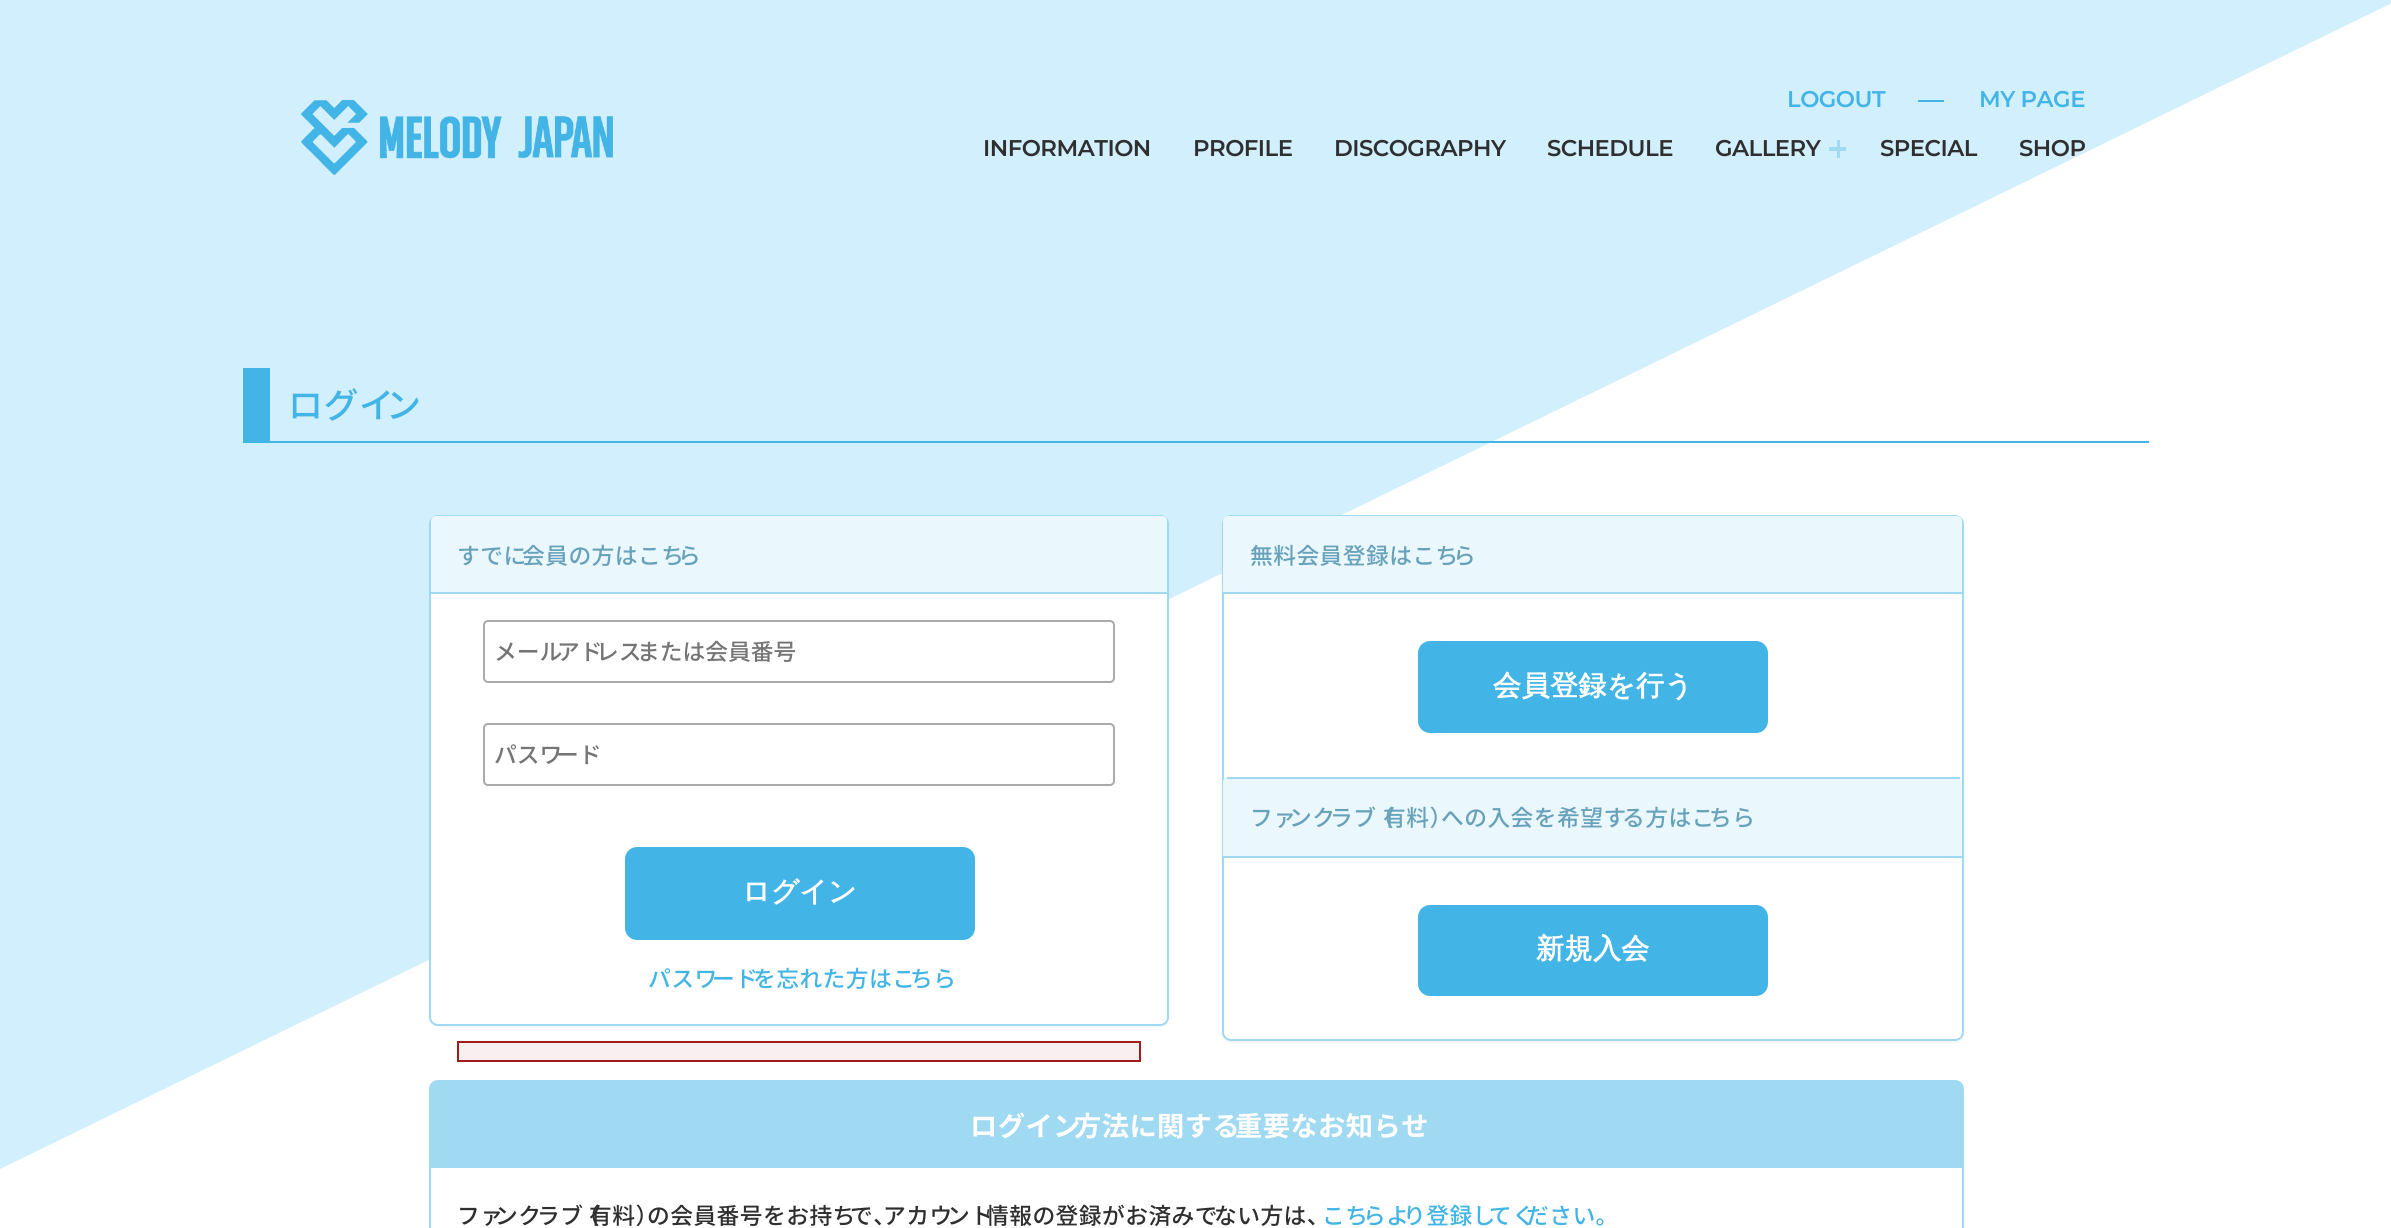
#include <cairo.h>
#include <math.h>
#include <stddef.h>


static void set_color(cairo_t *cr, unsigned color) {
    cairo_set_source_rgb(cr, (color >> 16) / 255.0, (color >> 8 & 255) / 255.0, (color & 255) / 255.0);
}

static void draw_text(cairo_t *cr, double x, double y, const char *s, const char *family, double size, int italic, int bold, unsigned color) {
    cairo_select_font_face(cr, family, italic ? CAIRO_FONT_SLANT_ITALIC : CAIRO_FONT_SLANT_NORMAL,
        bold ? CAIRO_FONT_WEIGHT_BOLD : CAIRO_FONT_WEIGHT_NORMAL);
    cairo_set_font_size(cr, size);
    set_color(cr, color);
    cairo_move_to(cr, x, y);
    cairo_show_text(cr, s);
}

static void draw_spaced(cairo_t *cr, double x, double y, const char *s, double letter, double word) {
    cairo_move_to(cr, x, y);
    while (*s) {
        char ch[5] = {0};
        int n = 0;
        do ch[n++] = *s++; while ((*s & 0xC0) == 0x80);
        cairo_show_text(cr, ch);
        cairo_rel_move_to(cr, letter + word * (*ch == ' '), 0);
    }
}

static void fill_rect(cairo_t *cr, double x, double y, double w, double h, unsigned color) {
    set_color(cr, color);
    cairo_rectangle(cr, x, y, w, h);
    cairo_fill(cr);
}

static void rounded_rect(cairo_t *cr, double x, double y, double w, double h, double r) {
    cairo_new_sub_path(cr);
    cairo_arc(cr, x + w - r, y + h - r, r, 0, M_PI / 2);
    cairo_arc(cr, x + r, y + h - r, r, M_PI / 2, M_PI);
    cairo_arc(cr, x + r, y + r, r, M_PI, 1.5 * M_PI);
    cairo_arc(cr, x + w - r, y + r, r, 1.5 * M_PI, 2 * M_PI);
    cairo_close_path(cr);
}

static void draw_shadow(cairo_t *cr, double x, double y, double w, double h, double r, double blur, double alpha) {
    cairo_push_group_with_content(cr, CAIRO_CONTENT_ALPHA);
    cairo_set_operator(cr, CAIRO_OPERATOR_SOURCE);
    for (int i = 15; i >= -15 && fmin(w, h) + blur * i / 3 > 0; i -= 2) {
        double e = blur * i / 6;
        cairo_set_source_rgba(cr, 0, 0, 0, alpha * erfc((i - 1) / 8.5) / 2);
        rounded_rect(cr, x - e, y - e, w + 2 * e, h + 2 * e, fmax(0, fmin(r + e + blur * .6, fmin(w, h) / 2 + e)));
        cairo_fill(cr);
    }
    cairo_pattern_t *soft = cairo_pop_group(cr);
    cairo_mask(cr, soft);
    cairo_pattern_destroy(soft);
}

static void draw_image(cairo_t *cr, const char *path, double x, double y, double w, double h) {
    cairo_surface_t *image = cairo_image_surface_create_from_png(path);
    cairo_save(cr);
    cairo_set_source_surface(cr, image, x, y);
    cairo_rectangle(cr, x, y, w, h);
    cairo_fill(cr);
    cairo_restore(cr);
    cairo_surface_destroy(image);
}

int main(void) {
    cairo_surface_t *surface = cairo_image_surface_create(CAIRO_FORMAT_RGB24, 2391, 1228);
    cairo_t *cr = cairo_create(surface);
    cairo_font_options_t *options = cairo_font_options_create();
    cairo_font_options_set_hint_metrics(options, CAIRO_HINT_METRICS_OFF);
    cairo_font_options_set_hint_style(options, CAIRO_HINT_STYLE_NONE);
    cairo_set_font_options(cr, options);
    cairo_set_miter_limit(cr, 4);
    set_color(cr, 0xFFFFFF);
    cairo_paint(cr);
    set_color(cr, 0xD2EFFD);
    cairo_new_path(cr);
    cairo_move_to(cr, 0, -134);
    cairo_line_to(cr, 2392, -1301);
    cairo_line_to(cr, 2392, 3);
    cairo_line_to(cr, 0, 1169);
    cairo_close_path(cr);
    cairo_fill(cr);
    draw_image(cr, "assets/img1.png", 300, 99, 313, 76);
    cairo_select_font_face(cr, "Montserrat SemiBold", CAIRO_FONT_SLANT_NORMAL, CAIRO_FONT_WEIGHT_NORMAL);
    cairo_set_font_size(cr, 22.75);
    set_color(cr, 0x42B4E6);
    draw_spaced(cr, 1787, 107, "LOGOUT", -0.5, 0);
    fill_rect(cr, 1918, 100, 26, 2, 0x42B4E6);
    draw_spaced(cr, 1979, 107, "MY PAGE", -0.5, 0);
    set_color(cr, 0x2F2F2F);
    draw_spaced(cr, 983, 156, "INFORMATION", -0.5, 0);
    draw_spaced(cr, 1193, 156, "PROFILE", -0.5, 0);
    draw_spaced(cr, 1334, 156, "DISCOGRAPHY", -0.5, 0);
    draw_spaced(cr, 1547, 156, "SCHEDULE", -0.5, 0);
    draw_spaced(cr, 1715, 156, "GALLERY", -0.5, 0);
    fill_rect(cr, 1837, 140, 3, 18, 0xA0D9F2);
    fill_rect(cr, 1829, 147, 17, 4, 0xA0D9F2);
    set_color(cr, 0x2F2F2F);
    draw_spaced(cr, 1880, 156, "SPECIAL", -0.5, 0);
    draw_spaced(cr, 2019, 156, "SHOP", -0.5, 0);
    fill_rect(cr, 270, 441, 1879, 2, 0x42B4E6);
    fill_rect(cr, 243, 368, 27, 75, 0x42B4E6);
    cairo_select_font_face(cr, "Noto Sans JP Medium", CAIRO_FONT_SLANT_NORMAL, CAIRO_FONT_WEIGHT_NORMAL);
    cairo_set_font_size(cr, 35);
    draw_spaced(cr, 288, 418, "ログイ", 0.45, 0);
    draw_spaced(cr, 386, 418, "ン", 0.45, 0);
    set_color(cr, 0x000000);
    draw_shadow(cr, 429, 516, 740, 511, 9, 1, 0.05);
    set_color(cr, 0xFFFFFF);
    rounded_rect(cr, 430, 516, 738, 509, 8);
    cairo_fill_preserve(cr);
    set_color(cr, 0xA0D9F2);
    cairo_stroke(cr);
    set_color(cr, 0xEAF7FD);
    cairo_new_path(cr);
    cairo_move_to(cr, 436, 516);
    cairo_line_to(cr, 1162, 516);
    cairo_curve_to(cr, 1165, 516, 1167, 518, 1167, 521);
    cairo_line_to(cr, 1167, 593);
    cairo_line_to(cr, 431, 593);
    cairo_line_to(cr, 431, 521);
    cairo_curve_to(cr, 431, 518, 433, 516, 436, 516);
    cairo_close_path(cr);
    cairo_fill(cr);
    fill_rect(cr, 431, 592, 736, 2, 0xA0D9F2);
    cairo_set_font_size(cr, 22.75);
    set_color(cr, 0x67A1BA);
    draw_spaced(cr, 457, 564, "すでに", 0.45, 0);
    draw_spaced(cr, 522, 564, "会員の方はこち", 0.45, 0);
    draw_spaced(cr, 678, 564, "ら", 0.45, 0);
    rounded_rect(cr, 484, 621, 630, 61, 4);
    set_color(cr, 0xAAAAAA);
    cairo_stroke(cr);
    draw_text(cr, 494, 660, "メール", "Noto Sans JP Medium", 22.75, 0, 0, 0x757575);
    draw_text(cr, 557, 660, "アド", "Noto Sans JP Medium", 22.75, 0, 0, 0x757575);
    draw_text(cr, 596, 660, "レス", "Noto Sans JP Medium", 22.75, 0, 0, 0x757575);
    draw_text(cr, 637, 660, "または会員番号", "Noto Sans JP Medium", 22.75, 0, 0, 0x757575);
    rounded_rect(cr, 484, 724, 630, 61, 4);
    set_color(cr, 0xAAAAAA);
    cairo_stroke(cr);
    draw_text(cr, 494, 763, "パスワ", "Noto Sans JP Medium", 22.75, 0, 0, 0x757575);
    draw_text(cr, 556, 763, "ード", "Noto Sans JP Medium", 22.75, 0, 0, 0x757575);
    set_color(cr, 0x42B4E6);
    rounded_rect(cr, 625, 847, 350, 93, 12);
    cairo_fill(cr);
    draw_text(cr, 742, 901, "ログイン", "WenQuanYi Zen Hei", 28, 0, 1, 0xFFFFFF);
    cairo_select_font_face(cr, "Noto Sans JP Medium", CAIRO_FONT_SLANT_NORMAL, CAIRO_FONT_WEIGHT_NORMAL);
    cairo_set_font_size(cr, 22.75);
    set_color(cr, 0x42B4E6);
    draw_spaced(cr, 648, 987, "パスワ", 0.45, 0);
    draw_spaced(cr, 712, 987, "ード", 0.45, 0);
    draw_spaced(cr, 753, 987, "を忘れた方はこ", 0.45, 0);
    draw_spaced(cr, 910, 987, "ちら", 0.45, 0);
    set_color(cr, 0xF9EFF0);
    cairo_rectangle(cr, 458, 1042, 682, 19);
    cairo_fill_preserve(cr);
    set_color(cr, 0x9E1E1E);
    cairo_stroke(cr);
    set_color(cr, 0x000000);
    draw_shadow(cr, 1222, 516, 742, 527, 9, 1, 0.05);
    set_color(cr, 0xFFFFFF);
    rounded_rect(cr, 1223, 516, 740, 524, 8);
    cairo_fill_preserve(cr);
    set_color(cr, 0xA0D9F2);
    cairo_stroke(cr);
    set_color(cr, 0xEAF7FD);
    cairo_new_path(cr);
    cairo_move_to(cr, 1228, 516);
    cairo_line_to(cr, 1957, 516);
    cairo_curve_to(cr, 1960, 516, 1962, 518, 1962, 521);
    cairo_line_to(cr, 1962, 593);
    cairo_line_to(cr, 1223, 593);
    cairo_line_to(cr, 1223, 521);
    cairo_curve_to(cr, 1223, 518, 1225, 516, 1228, 516);
    cairo_close_path(cr);
    cairo_fill(cr);
    fill_rect(cr, 1223, 592, 739, 2, 0xA0D9F2);
    set_color(cr, 0x67A1BA);
    draw_spaced(cr, 1250, 564, "無料会員登録はこち", 0.45, 0);
    draw_spaced(cr, 1453, 564, "ら", 0.45, 0);
    set_color(cr, 0x42B4E6);
    rounded_rect(cr, 1418, 641, 350, 92, 12);
    cairo_fill(cr);
    cairo_select_font_face(cr, "WenQuanYi Zen Hei", CAIRO_FONT_SLANT_NORMAL, CAIRO_FONT_WEIGHT_BOLD);
    cairo_set_font_size(cr, 28);
    set_color(cr, 0xFFFFFF);
    draw_spaced(cr, 1493, 695, "会員登録を行う", 0.45, 0);
    set_color(cr, 0xEAF7FD);
    cairo_new_path(cr);
    cairo_move_to(cr, 1228, 777);
    cairo_line_to(cr, 1957, 777);
    cairo_curve_to(cr, 1960, 777, 1962, 779, 1962, 782);
    cairo_line_to(cr, 1962, 858);
    cairo_line_to(cr, 1223, 858);
    cairo_line_to(cr, 1223, 782);
    cairo_curve_to(cr, 1223, 779, 1225, 777, 1228, 777);
    cairo_close_path(cr);
    cairo_fill(cr);
    fill_rect(cr, 1227, 777, 733, 2, 0xA0D9F2);
    fill_rect(cr, 1223, 856, 739, 2, 0xA0D9F2);
    cairo_select_font_face(cr, "Noto Sans JP Medium", CAIRO_FONT_SLANT_NORMAL, CAIRO_FONT_WEIGHT_NORMAL);
    cairo_set_font_size(cr, 22.75);
    set_color(cr, 0x67A1BA);
    draw_spaced(cr, 1250, 826, "ファ", 0.45, 0);
    draw_spaced(cr, 1289, 826, "ンク", 0.45, 0);
    draw_spaced(cr, 1330, 826, "ラブ", 0.45, 0);
    draw_spaced(cr, 1371, 826, "（", 0.45, 0);
    draw_spaced(cr, 1383, 826, "有料）", 0.45, 0);
    draw_spaced(cr, 1441, 826, "への入会を希望す", 0.45, 0);
    draw_spaced(cr, 1622, 826, "る方はこ", 0.45, 0);
    draw_spaced(cr, 1709, 826, "ちら", 0.45, 0);
    set_color(cr, 0x42B4E6);
    rounded_rect(cr, 1418, 905, 350, 91, 12);
    cairo_fill(cr);
    cairo_select_font_face(cr, "WenQuanYi Zen Hei", CAIRO_FONT_SLANT_NORMAL, CAIRO_FONT_WEIGHT_BOLD);
    cairo_set_font_size(cr, 28);
    set_color(cr, 0xFFFFFF);
    draw_spaced(cr, 1536, 958, "新規入会", 0.45, 0);
    rounded_rect(cr, 430, 1081, 1533, 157, 8);
    set_color(cr, 0xA0D9F2);
    cairo_stroke(cr);
    cairo_new_path(cr);
    cairo_move_to(cr, 436, 1082);
    cairo_line_to(cr, 1957, 1082);
    cairo_curve_to(cr, 1960, 1082, 1962, 1084, 1962, 1087);
    cairo_line_to(cr, 1962, 1167);
    cairo_line_to(cr, 431, 1167);
    cairo_line_to(cr, 431, 1087);
    cairo_curve_to(cr, 431, 1084, 433, 1082, 436, 1082);
    cairo_close_path(cr);
    cairo_fill(cr);
    fill_rect(cr, 431, 1167, 1531, 1, 0xA0D9F2);
    cairo_select_font_face(cr, "Noto Sans JP", CAIRO_FONT_SLANT_NORMAL, CAIRO_FONT_WEIGHT_BOLD);
    cairo_set_font_size(cr, 27.25);
    set_color(cr, 0xFFFFFF);
    draw_spaced(cr, 970, 1136, "ログイン", 0.45, 0);
    draw_spaced(cr, 1074, 1136, "方法に関する", 0.45, 0);
    draw_spaced(cr, 1235, 1136, "重要なお知らせ", 0.45, 0);
    cairo_select_font_face(cr, "Noto Sans JP Medium", CAIRO_FONT_SLANT_NORMAL, CAIRO_FONT_WEIGHT_NORMAL);
    cairo_set_font_size(cr, 22.75);
    set_color(cr, 0x2F2F2F);
    draw_spaced(cr, 457, 1224, "ファ", 0.45, 0);
    draw_spaced(cr, 495, 1224, "ンク", 0.45, 0);
    draw_spaced(cr, 537, 1224, "ラブ", 0.45, 0);
    draw_spaced(cr, 577, 1224, "（", 0.45, 0);
    draw_spaced(cr, 589, 1224, "有料）", 0.45, 0);
    draw_spaced(cr, 647, 1224, "の会員番号をお持ち", 0.45, 0);
    draw_spaced(cr, 850, 1224, "で、", 0.45, 0);
    draw_spaced(cr, 883, 1224, "アカウ", 0.45, 0);
    draw_spaced(cr, 947, 1224, "ント", 0.45, 0);
    draw_spaced(cr, 986, 1224, "情報の登録がお済みで", 0.45, 0);
    draw_spaced(cr, 1214, 1224, "ない方は、", 0.45, 0);
    set_color(cr, 0x42B4E6);
    draw_spaced(cr, 1322, 1224, "こち", 0.45, 0);
    draw_spaced(cr, 1363, 1224, "らよ", 0.45, 0);
    draw_spaced(cr, 1403, 1224, "り登録し", 0.45, 0);
    draw_spaced(cr, 1489, 1224, "てく", 0.45, 0);
    draw_spaced(cr, 1526, 1224, "ださい。", 0.45, 0);
    cairo_surface_write_to_png(surface, "output.png");
    cairo_font_options_destroy(options);
    cairo_destroy(cr);
    cairo_surface_destroy(surface);
    return 0;
}
